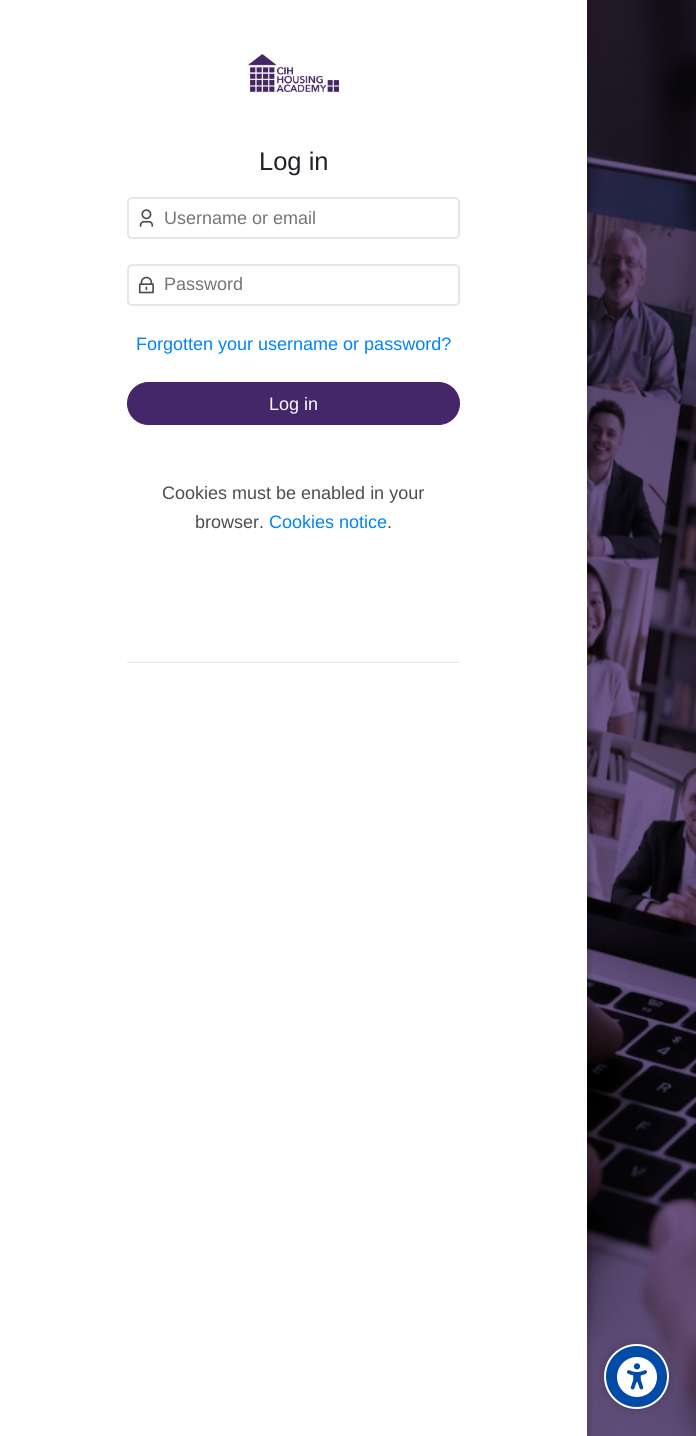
#include <cairo.h>
#include <math.h>
#include <stddef.h>


static void set_color(cairo_t *cr, unsigned color) {
    cairo_set_source_rgb(cr, (color >> 16) / 255.0, (color >> 8 & 255) / 255.0, (color & 255) / 255.0);
}

static void draw_text(cairo_t *cr, double x, double y, const char *s, const char *family, double size, int italic, int bold, unsigned color) {
    cairo_select_font_face(cr, family, italic ? CAIRO_FONT_SLANT_ITALIC : CAIRO_FONT_SLANT_NORMAL,
        bold ? CAIRO_FONT_WEIGHT_BOLD : CAIRO_FONT_WEIGHT_NORMAL);
    cairo_set_font_size(cr, size);
    set_color(cr, color);
    cairo_move_to(cr, x, y);
    cairo_show_text(cr, s);
}

static void fill_rect(cairo_t *cr, double x, double y, double w, double h, unsigned color) {
    set_color(cr, color);
    cairo_rectangle(cr, x, y, w, h);
    cairo_fill(cr);
}

static void rounded_rect(cairo_t *cr, double x, double y, double w, double h, double r) {
    cairo_new_sub_path(cr);
    cairo_arc(cr, x + w - r, y + h - r, r, 0, M_PI / 2);
    cairo_arc(cr, x + r, y + h - r, r, M_PI / 2, M_PI);
    cairo_arc(cr, x + r, y + r, r, M_PI, 1.5 * M_PI);
    cairo_arc(cr, x + w - r, y + r, r, 1.5 * M_PI, 2 * M_PI);
    cairo_close_path(cr);
}

static void draw_shadow(cairo_t *cr, double x, double y, double w, double h, double r, double blur, double alpha) {
    cairo_push_group_with_content(cr, CAIRO_CONTENT_ALPHA);
    cairo_set_operator(cr, CAIRO_OPERATOR_SOURCE);
    for (int i = 15; i >= -15 && fmin(w, h) + blur * i / 3 > 0; i -= 2) {
        double e = blur * i / 6;
        cairo_set_source_rgba(cr, 0, 0, 0, alpha * erfc((i - 1) / 8.5) / 2);
        rounded_rect(cr, x - e, y - e, w + 2 * e, h + 2 * e, fmax(0, fmin(r + e + blur * .6, fmin(w, h) / 2 + e)));
        cairo_fill(cr);
    }
    cairo_pattern_t *soft = cairo_pop_group(cr);
    cairo_mask(cr, soft);
    cairo_pattern_destroy(soft);
}

static void draw_image(cairo_t *cr, const char *path, double x, double y, double w, double h) {
    cairo_surface_t *image = cairo_image_surface_create_from_png(path);
    cairo_save(cr);
    cairo_set_source_surface(cr, image, x, y);
    cairo_rectangle(cr, x, y, w, h);
    cairo_fill(cr);
    cairo_restore(cr);
    cairo_surface_destroy(image);
}

int main(void) {
    cairo_surface_t *surface = cairo_image_surface_create(CAIRO_FORMAT_RGB24, 696, 1436);
    cairo_t *cr = cairo_create(surface);
    cairo_font_options_t *options = cairo_font_options_create();
    cairo_font_options_set_hint_metrics(options, CAIRO_HINT_METRICS_OFF);
    cairo_font_options_set_hint_style(options, CAIRO_HINT_STYLE_NONE);
    cairo_set_font_options(cr, options);
    cairo_set_miter_limit(cr, 4);
    set_color(cr, 0xFFFFFF);
    cairo_paint(cr);
    draw_image(cr, "assets/img4.png", 587, 0, 109, 1436);
    cairo_save(cr);
    cairo_rectangle(cr, 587, 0, 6, 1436);
    cairo_clip(cr);
    set_color(cr, 0x000000);
    draw_shadow(cr, 3, 0, 587, 1436, 0, 2.5, 0.15);
    cairo_restore(cr);
    draw_image(cr, "assets/img1.png", 248, 54, 91, 38);
    draw_text(cr, 259, 170, "Log in", "Liberation Sans", 25.5, 0, 0, 0x242027);
    rounded_rect(cr, 128, 198, 331, 40, 4);
    set_color(cr, 0xE6E6E6);
    cairo_stroke(cr);
    draw_image(cr, "assets/img2.png", 139, 209, 15, 18);
    draw_text(cr, 164, 224, "Username or email", "Liberation Sans", 18, 0, 0, 0x757575);
    rounded_rect(cr, 128, 265, 331, 40, 4);
    set_color(cr, 0xE6E6E6);
    cairo_stroke(cr);
    draw_image(cr, "assets/img3.png", 138, 276, 16, 18);
    draw_text(cr, 164, 290, "Password", "Liberation Sans", 18, 0, 0, 0x757575);
    draw_text(cr, 136, 350, "Forgotten your username or password?", "Liberation Sans", 18, 0, 0, 0x0083FA);
    set_color(cr, 0x442769);
    rounded_rect(cr, 127.5, 382.5, 332, 42, 21);
    cairo_fill_preserve(cr);
    cairo_set_line_width(cr, 1);
    cairo_stroke(cr);
    draw_text(cr, 269, 410, "Log in", "Liberation Sans", 18, 0, 0, 0xFFFFFF);
    draw_text(cr, 162, 499, "Cookies must be enabled in your", "Liberation Sans", 18, 0, 0, 0x4F4C51);
    draw_text(cr, 195, 528, "browser.", "Liberation Sans", 18, 0, 0, 0x4F4C51);
    draw_text(cr, 269, 528, "Cookies notice", "Liberation Sans", 18, 0, 0, 0x0083FA);
    draw_text(cr, 387, 528, ".", "Liberation Sans", 18, 0, 0, 0x4F4C51);
    fill_rect(cr, 127, 662, 333, 1, 0xE6E6E6);
    set_color(cr, 0x000000);
    draw_shadow(cr, 604, 1344, 65, 65, 32.5, 5, 0.2);
    set_color(cr, 0x004BA8);
    cairo_arc(cr, 636.5, 1376.5, 31.5, 0, 2 * M_PI);
    cairo_fill_preserve(cr);
    set_color(cr, 0xFFFFFF);
    cairo_set_line_width(cr, 2);
    cairo_stroke(cr);
    draw_image(cr, "assets/img5.png", 617, 1357, 40, 40);
    cairo_surface_write_to_png(surface, "output.png");
    cairo_font_options_destroy(options);
    cairo_destroy(cr);
    cairo_surface_destroy(surface);
    return 0;
}
